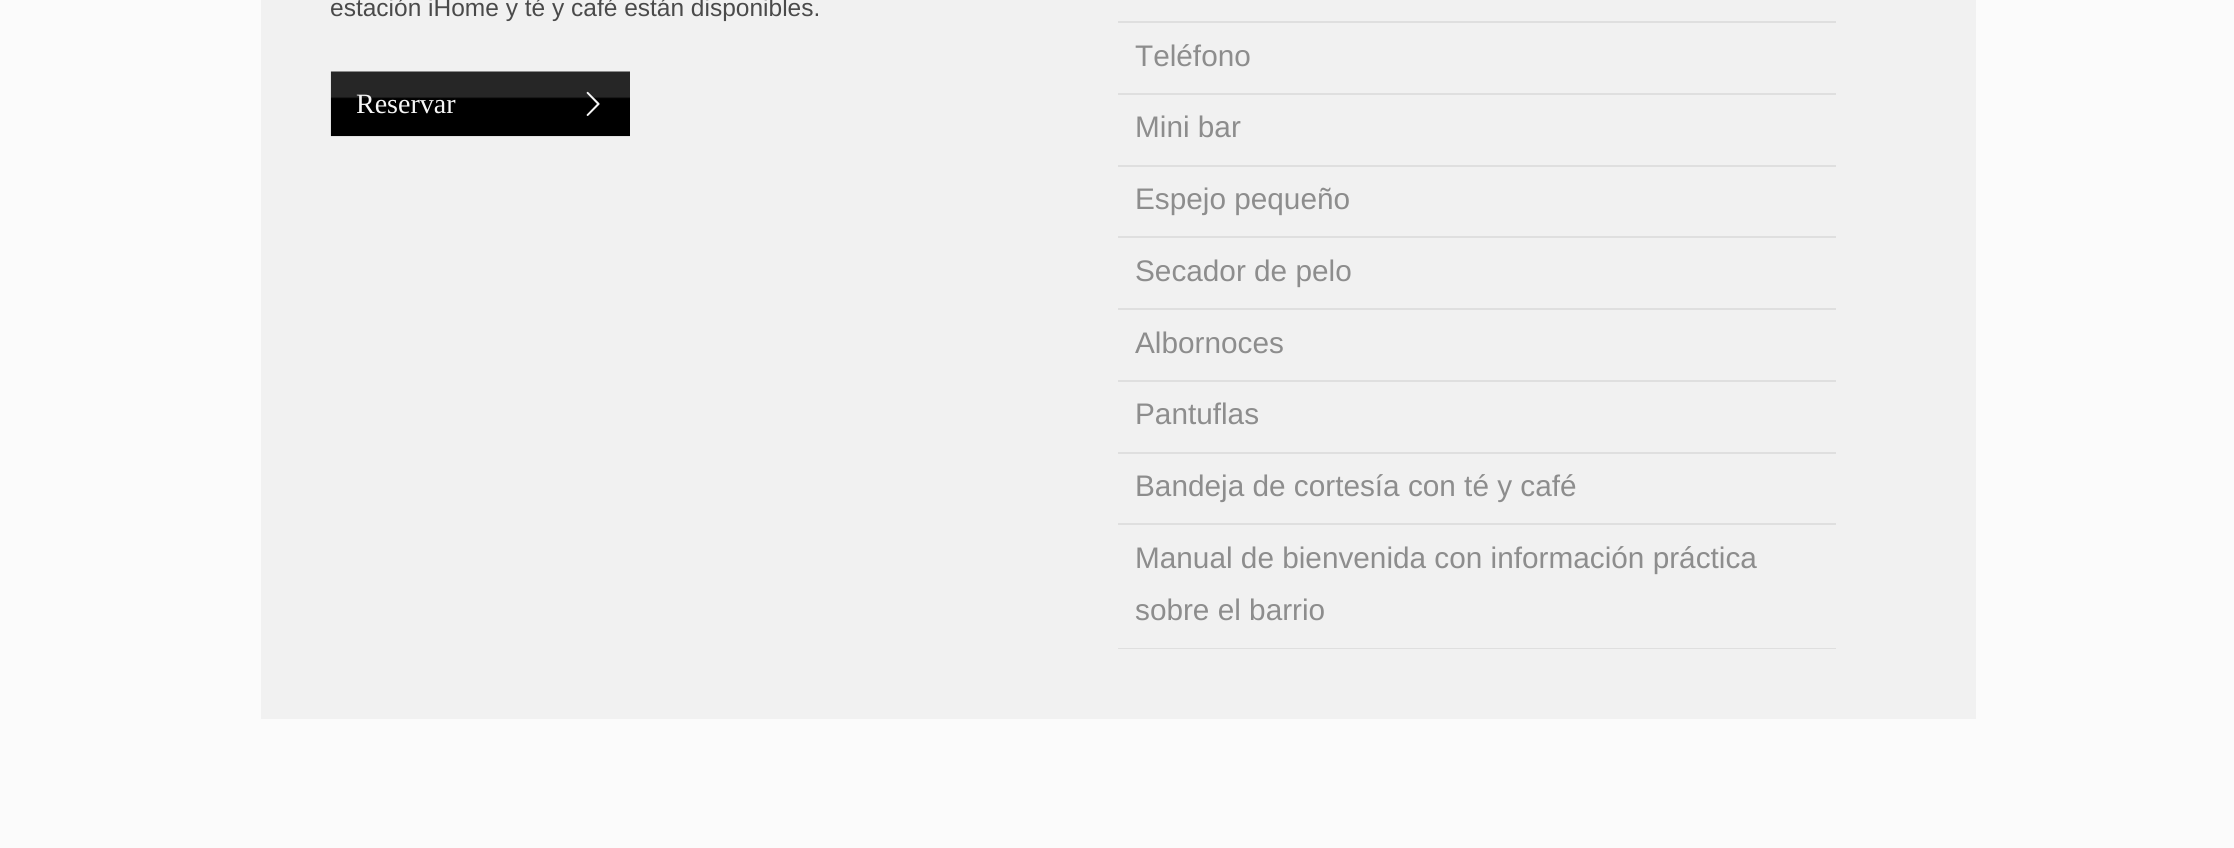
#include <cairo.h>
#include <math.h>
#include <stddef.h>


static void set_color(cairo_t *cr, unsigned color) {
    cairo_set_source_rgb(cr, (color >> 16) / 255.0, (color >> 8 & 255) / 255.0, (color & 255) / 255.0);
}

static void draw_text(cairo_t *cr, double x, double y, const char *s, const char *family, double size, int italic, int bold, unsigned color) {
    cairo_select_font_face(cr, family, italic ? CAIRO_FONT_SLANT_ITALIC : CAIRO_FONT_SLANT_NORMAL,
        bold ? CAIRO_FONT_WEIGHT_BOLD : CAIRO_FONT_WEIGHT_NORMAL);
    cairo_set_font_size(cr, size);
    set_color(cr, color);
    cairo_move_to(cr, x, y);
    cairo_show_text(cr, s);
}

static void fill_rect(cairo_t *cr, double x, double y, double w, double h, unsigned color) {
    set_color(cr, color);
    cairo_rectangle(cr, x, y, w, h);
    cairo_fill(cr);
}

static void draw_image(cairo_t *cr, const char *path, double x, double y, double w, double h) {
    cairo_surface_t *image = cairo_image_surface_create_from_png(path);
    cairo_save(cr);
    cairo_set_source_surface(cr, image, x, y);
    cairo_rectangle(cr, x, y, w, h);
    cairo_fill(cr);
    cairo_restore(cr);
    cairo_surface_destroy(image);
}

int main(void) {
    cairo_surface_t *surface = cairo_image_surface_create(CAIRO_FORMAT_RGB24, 2234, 848);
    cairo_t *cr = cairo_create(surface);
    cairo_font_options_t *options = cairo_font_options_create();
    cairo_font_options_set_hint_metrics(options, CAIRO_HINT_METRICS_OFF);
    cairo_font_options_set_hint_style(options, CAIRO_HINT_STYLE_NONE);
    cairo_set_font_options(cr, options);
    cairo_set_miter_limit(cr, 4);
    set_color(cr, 0xFBFBFB);
    cairo_paint(cr);
    fill_rect(cr, 261, 0, 1715, 719, 0xF1F1F1);
    draw_text(cr, 330, 16, "estación iHome y té y café están disponibles.", "Liberation Sans", 24.5, 0, 0, 0x4A4A4A);
    draw_image(cr, "assets/img1.png", 330, 71, 300, 66);
    draw_text(cr, 356, 113, "Reservar", "Liberation Serif", 28, 0, 0, 0xF6F6F6);
    draw_image(cr, "assets/img2.png", 586, 91, 14, 25);
    fill_rect(cr, 1118, 21, 718, 2, 0xDFDFDF);
    fill_rect(cr, 1118, 93, 718, 2, 0xDFDFDF);
    draw_text(cr, 1135, 66, "Teléfono", "Liberation Sans", 29.75, 0, 0, 0x8D8D8D);
    fill_rect(cr, 1118, 165, 718, 2, 0xDFDFDF);
    draw_text(cr, 1135, 137, "Mini bar", "Liberation Sans", 29.75, 0, 0, 0x8D8D8D);
    fill_rect(cr, 1118, 236, 718, 2, 0xDFDFDF);
    draw_text(cr, 1135, 209, "Espejo pequeño", "Liberation Sans", 29.75, 0, 0, 0x8D8D8D);
    fill_rect(cr, 1118, 308, 718, 2, 0xDFDFDF);
    draw_text(cr, 1135, 281, "Secador de pelo", "Liberation Sans", 29.75, 0, 0, 0x8D8D8D);
    fill_rect(cr, 1118, 380, 718, 2, 0xDFDFDF);
    draw_text(cr, 1135, 353, "Albornoces", "Liberation Sans", 29.75, 0, 0, 0x8D8D8D);
    fill_rect(cr, 1118, 452, 718, 2, 0xDFDFDF);
    draw_text(cr, 1135, 424, "Pantuflas", "Liberation Sans", 29.75, 0, 0, 0x8D8D8D);
    fill_rect(cr, 1118, 523, 718, 2, 0xDFDFDF);
    draw_text(cr, 1135, 496, "Bandeja de cortesía con té y café", "Liberation Sans", 29.75, 0, 0, 0x8D8D8D);
    fill_rect(cr, 1118, 648, 718, 1, 0xDFDFDF);
    draw_text(cr, 1135, 568, "Manual de bienvenida con información práctica", "Liberation Sans", 29.75, 0, 0, 0x8D8D8D);
    draw_text(cr, 1135, 620, "sobre el barrio", "Liberation Sans", 29.75, 0, 0, 0x8D8D8D);
    cairo_surface_write_to_png(surface, "output.png");
    cairo_font_options_destroy(options);
    cairo_destroy(cr);
    cairo_surface_destroy(surface);
    return 0;
}
